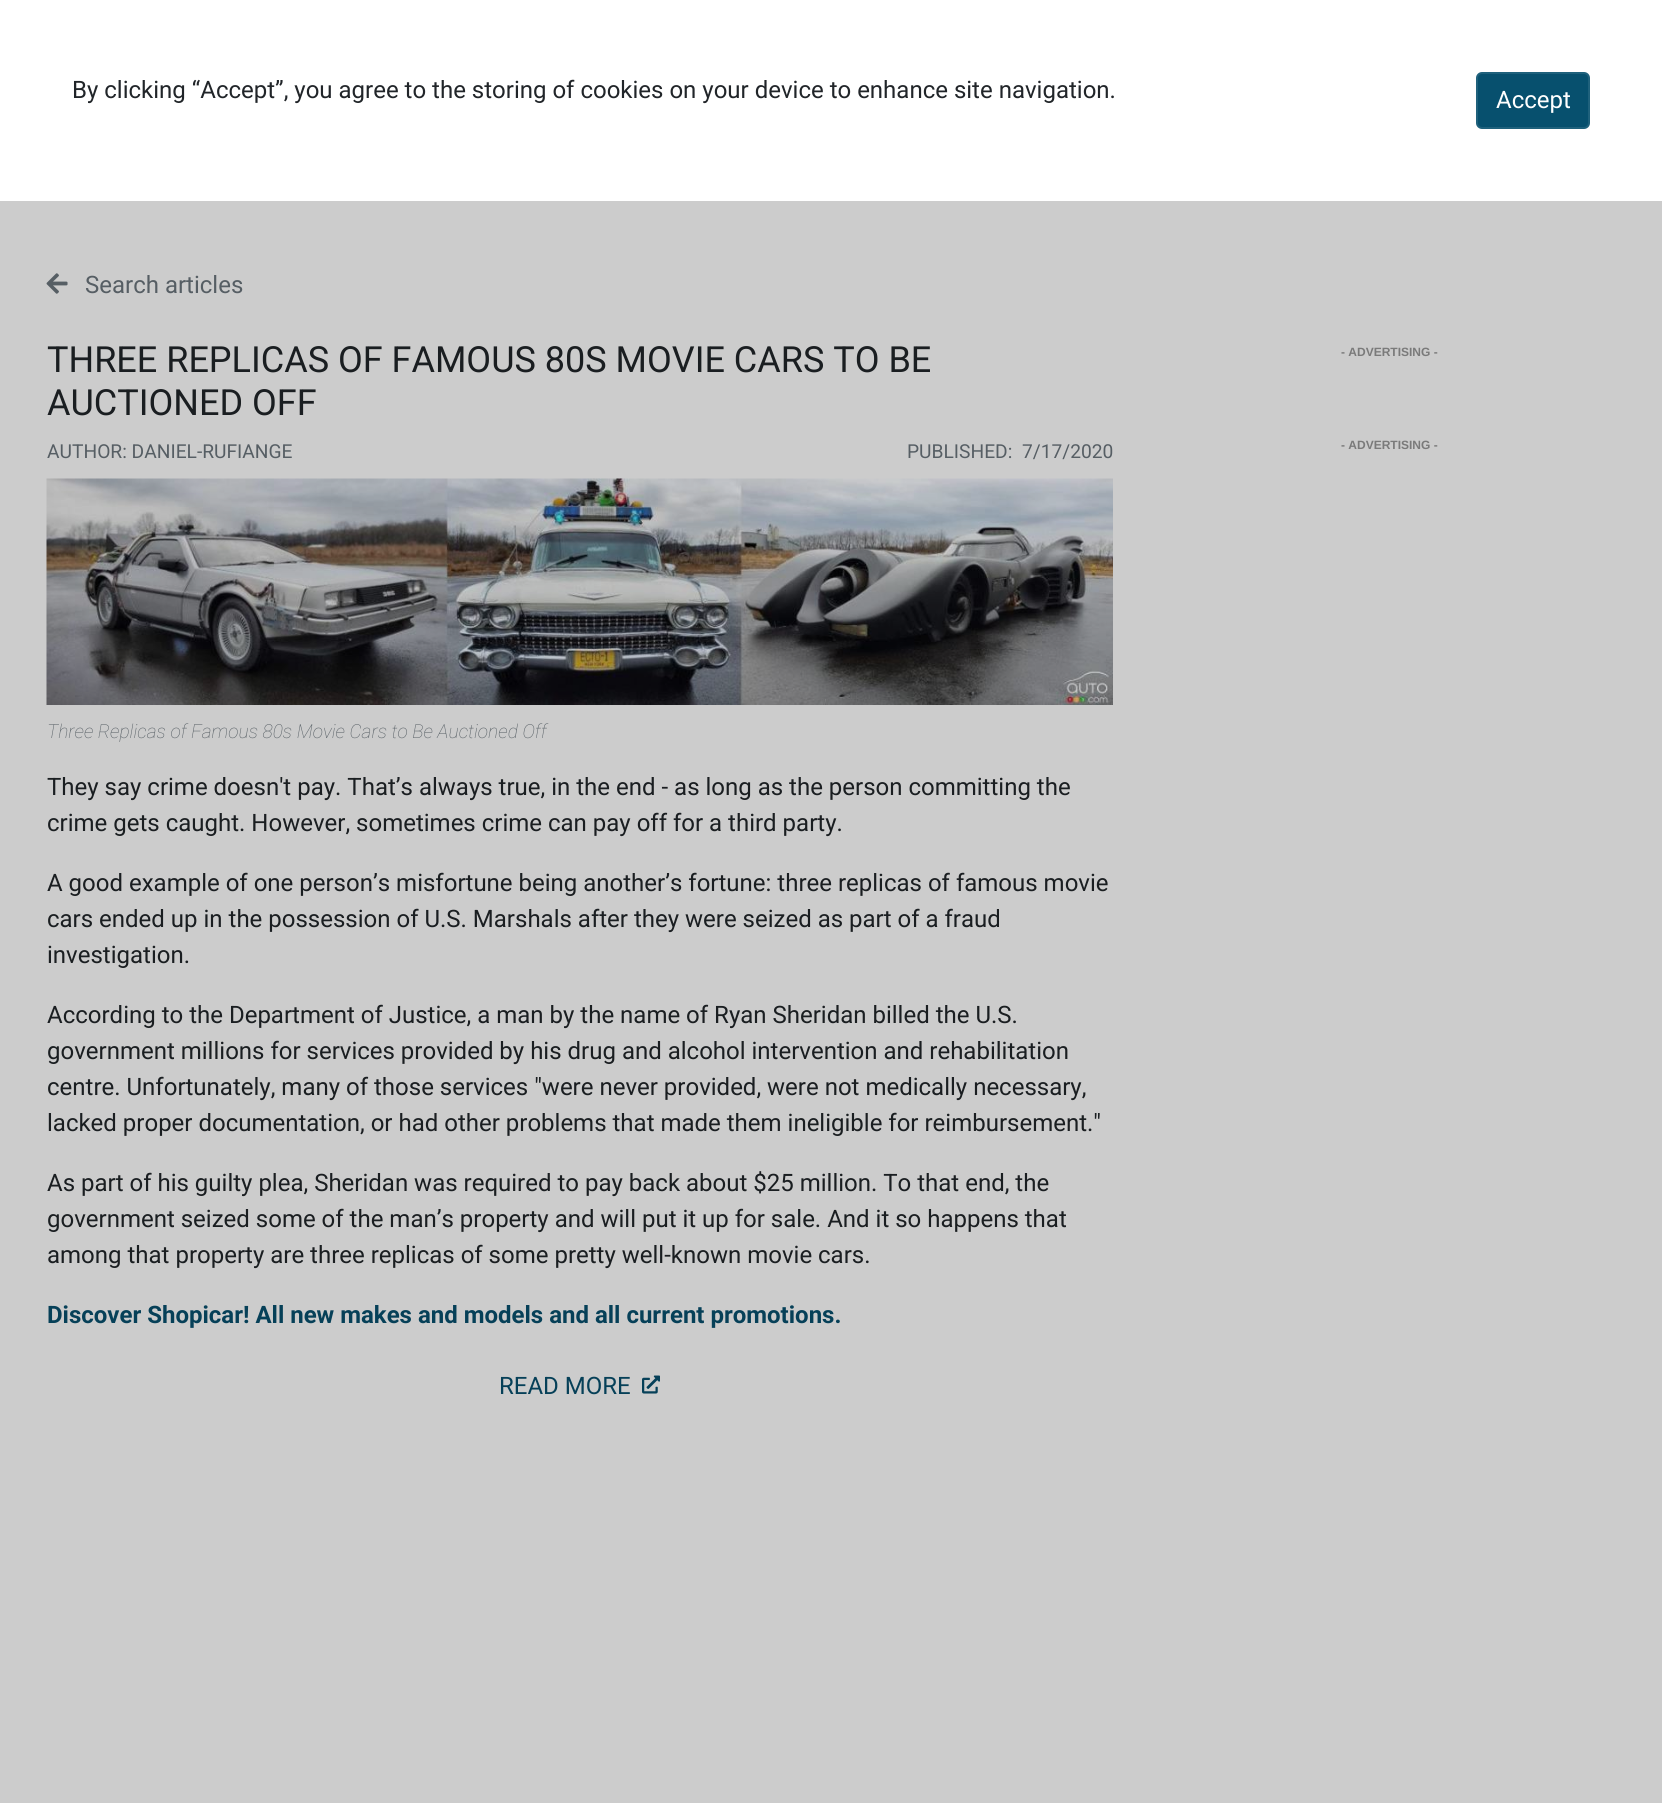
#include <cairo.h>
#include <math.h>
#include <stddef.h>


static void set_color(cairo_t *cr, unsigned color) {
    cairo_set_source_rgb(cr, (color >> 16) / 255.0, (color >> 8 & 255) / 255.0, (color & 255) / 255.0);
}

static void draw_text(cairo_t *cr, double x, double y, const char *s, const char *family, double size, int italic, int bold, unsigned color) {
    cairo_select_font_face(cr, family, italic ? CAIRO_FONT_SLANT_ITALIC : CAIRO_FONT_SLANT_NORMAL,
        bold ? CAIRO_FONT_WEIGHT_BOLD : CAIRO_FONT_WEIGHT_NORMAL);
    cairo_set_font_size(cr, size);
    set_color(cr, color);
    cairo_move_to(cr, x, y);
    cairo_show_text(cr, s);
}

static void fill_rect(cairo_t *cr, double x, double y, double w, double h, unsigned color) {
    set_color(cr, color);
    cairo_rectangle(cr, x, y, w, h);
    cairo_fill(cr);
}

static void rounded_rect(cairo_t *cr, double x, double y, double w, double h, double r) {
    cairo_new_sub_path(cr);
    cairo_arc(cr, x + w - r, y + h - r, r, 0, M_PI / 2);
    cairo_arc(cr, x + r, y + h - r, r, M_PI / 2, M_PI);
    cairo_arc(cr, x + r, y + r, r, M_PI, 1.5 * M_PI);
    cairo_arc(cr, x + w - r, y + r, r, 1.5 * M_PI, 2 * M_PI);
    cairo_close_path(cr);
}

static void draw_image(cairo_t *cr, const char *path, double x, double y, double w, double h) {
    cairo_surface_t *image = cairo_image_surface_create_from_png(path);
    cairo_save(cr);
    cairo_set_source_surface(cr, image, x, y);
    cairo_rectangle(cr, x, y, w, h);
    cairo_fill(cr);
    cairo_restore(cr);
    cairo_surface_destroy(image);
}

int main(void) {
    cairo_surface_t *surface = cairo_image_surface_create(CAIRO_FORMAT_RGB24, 1662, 1803);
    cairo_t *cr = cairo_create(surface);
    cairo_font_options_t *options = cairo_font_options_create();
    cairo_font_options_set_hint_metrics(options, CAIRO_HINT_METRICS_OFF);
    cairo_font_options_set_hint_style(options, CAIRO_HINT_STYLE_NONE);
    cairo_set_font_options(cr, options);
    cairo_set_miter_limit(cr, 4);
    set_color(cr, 0xCCCCCC);
    cairo_paint(cr);
    fill_rect(cr, 0, 0, 1662, 201, 0xFFFFFF);
    draw_text(cr, 72, 98, "By clicking “Accept”, you agree to the storing of cookies on your device to enhance site navigation.", "Roboto", 24, 0, 0, 0x212529);
    set_color(cr, 0x07506E);
    rounded_rect(cr, 1477, 73, 112, 55, 5);
    cairo_fill_preserve(cr);
    set_color(cr, 0x1F617C);
    cairo_stroke(cr);
    draw_text(cr, 1496, 108, "Accept", "Roboto", 24, 0, 0, 0xFFFFFF);
    draw_image(cr, "assets/img1.png", 46, 273, 22, 21);
    draw_text(cr, 85, 293, "Search articles", "Roboto", 24, 0, 0, 0x565E64);
    draw_text(cr, 47, 372, "THREE REPLICAS OF FAMOUS 80S MOVIE CARS TO BE", "Roboto", 36, 0, 0, 0x1A1E21);
    draw_text(cr, 47, 415, "AUCTIONED OFF", "Roboto", 36, 0, 0, 0x1A1E21);
    draw_text(cr, 47, 458, "AUTHOR: DANIEL-RUFIANGE", "Roboto", 19.2, 0, 0, 0x565E64);
    draw_text(cr, 907, 458, "PUBLISHED:", "Roboto", 19.2, 0, 0, 0x565E64);
    draw_text(cr, 1022, 458, "7/17/2020", "Roboto", 19.2, 0, 0, 0x565E64);
    draw_image(cr, "assets/img2.png", 46, 478, 1067, 227);
    draw_text(cr, 47, 738, "Three Replicas of Famous 80s Movie Cars to Be Auctioned Off", "Roboto Thin", 19.2, 1, 0, 0x565E64);
    draw_text(cr, 47, 795, "They say crime doesn't pay. That’s always true, in the end - as long as the person committing the", "Roboto", 24, 0, 0, 0x1A1E21);
    draw_text(cr, 47, 831, "crime gets caught. However, sometimes crime can pay off for a third party.", "Roboto", 24, 0, 0, 0x1A1E21);
    draw_text(cr, 47, 891, "A good example of one person’s misfortune being another’s fortune: three replicas of famous movie", "Roboto", 24, 0, 0, 0x1A1E21);
    draw_text(cr, 47, 927, "cars ended up in the possession of U.S. Marshals after they were seized as part of a fraud", "Roboto", 24, 0, 0, 0x1A1E21);
    draw_text(cr, 47, 963, "investigation.", "Roboto", 24, 0, 0, 0x1A1E21);
    draw_text(cr, 47, 1023, "According to the Department of Justice, a man by the name of Ryan Sheridan billed the U.S.", "Roboto", 24, 0, 0, 0x1A1E21);
    draw_text(cr, 47, 1059, "government millions for services provided by his drug and alcohol intervention and rehabilitation", "Roboto", 24, 0, 0, 0x1A1E21);
    draw_text(cr, 47, 1095, "centre. Unfortunately, many of those services \"were never provided, were not medically necessary,", "Roboto", 24, 0, 0, 0x1A1E21);
    draw_text(cr, 47, 1131, "lacked proper documentation, or had other problems that made them ineligible for reimbursement.\"", "Roboto", 24, 0, 0, 0x1A1E21);
    draw_text(cr, 47, 1191, "As part of his guilty plea, Sheridan was required to pay back about $25 million. To that end, the", "Roboto", 24, 0, 0, 0x1A1E21);
    draw_text(cr, 47, 1227, "government seized some of the man’s property and will put it up for sale. And it so happens that", "Roboto", 24, 0, 0, 0x1A1E21);
    draw_text(cr, 47, 1263, "among that property are three replicas of some pretty well-known movie cars.", "Roboto", 24, 0, 0, 0x1A1E21);
    draw_text(cr, 47, 1323, "Discover Shopicar! All new makes and models and all current promotions.", "Roboto", 24, 0, 1, 0x064058);
    draw_text(cr, 499, 1394, "READ MORE", "Roboto", 24, 0, 0, 0x064058);
    draw_image(cr, "assets/img3.png", 642, 1375, 18, 19);
    draw_text(cr, 1341, 356, "- ADVERTISING -", "Liberation Sans", 12, 0, 1, 0x7A7A7A);
    draw_text(cr, 1341, 449, "- ADVERTISING -", "Liberation Sans", 12, 0, 1, 0x7A7A7A);
    cairo_surface_write_to_png(surface, "output.png");
    cairo_font_options_destroy(options);
    cairo_destroy(cr);
    cairo_surface_destroy(surface);
    return 0;
}
